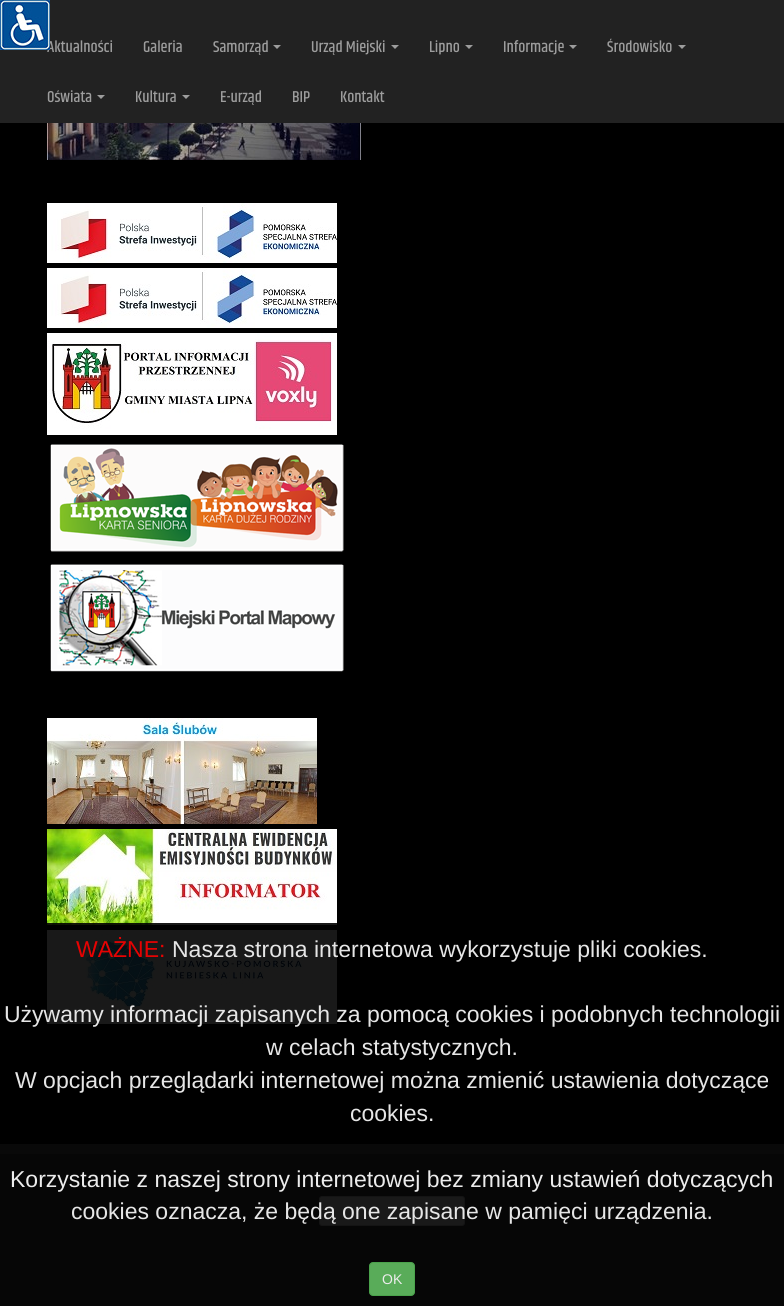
#include <cairo.h>
#include <math.h>
#include <stddef.h>


static void set_color(cairo_t *cr, unsigned color) {
    cairo_set_source_rgb(cr, (color >> 16) / 255.0, (color >> 8 & 255) / 255.0, (color & 255) / 255.0);
}

static void draw_text(cairo_t *cr, double x, double y, const char *s, const char *family, double size, int italic, int bold, unsigned color) {
    cairo_select_font_face(cr, family, italic ? CAIRO_FONT_SLANT_ITALIC : CAIRO_FONT_SLANT_NORMAL,
        bold ? CAIRO_FONT_WEIGHT_BOLD : CAIRO_FONT_WEIGHT_NORMAL);
    cairo_set_font_size(cr, size);
    set_color(cr, color);
    cairo_move_to(cr, x, y);
    cairo_show_text(cr, s);
}

static void fill_rect(cairo_t *cr, double x, double y, double w, double h, unsigned color) {
    set_color(cr, color);
    cairo_rectangle(cr, x, y, w, h);
    cairo_fill(cr);
}

static void rounded_rect(cairo_t *cr, double x, double y, double w, double h, double r) {
    cairo_new_sub_path(cr);
    cairo_arc(cr, x + w - r, y + h - r, r, 0, M_PI / 2);
    cairo_arc(cr, x + r, y + h - r, r, M_PI / 2, M_PI);
    cairo_arc(cr, x + r, y + r, r, M_PI, 1.5 * M_PI);
    cairo_arc(cr, x + w - r, y + r, r, 1.5 * M_PI, 2 * M_PI);
    cairo_close_path(cr);
}

static void draw_image(cairo_t *cr, const char *path, double x, double y, double w, double h) {
    cairo_surface_t *image = cairo_image_surface_create_from_png(path);
    cairo_save(cr);
    cairo_set_source_surface(cr, image, x, y);
    cairo_rectangle(cr, x, y, w, h);
    cairo_fill(cr);
    cairo_restore(cr);
    cairo_surface_destroy(image);
}

int main(void) {
    cairo_surface_t *surface = cairo_image_surface_create(CAIRO_FORMAT_RGB24, 784, 1306);
    cairo_t *cr = cairo_create(surface);
    cairo_font_options_t *options = cairo_font_options_create();
    cairo_font_options_set_hint_metrics(options, CAIRO_HINT_METRICS_OFF);
    cairo_font_options_set_hint_style(options, CAIRO_HINT_STYLE_NONE);
    cairo_set_font_options(cr, options);
    cairo_set_miter_limit(cr, 4);
    set_color(cr, 0x000000);
    cairo_paint(cr);
    fill_rect(cr, 0, 0, 784, 123, 0x222222);
    draw_text(cr, 47, 52, "Aktualności", "Khand Medium", 16, 0, 0, 0x9D9D9D);
    draw_image(cr, "assets/img1.png", 0, 0, 50, 50);
    draw_text(cr, 143, 52, "Galeria", "Khand Medium", 16, 0, 0, 0x9D9D9D);
    draw_text(cr, 213, 52, "Samorząd", "Khand Medium", 16, 0, 0, 0x9D9D9D);
    cairo_new_path(cr);
    cairo_move_to(cr, 273, 45);
    cairo_line_to(cr, 281, 45);
    cairo_line_to(cr, 277, 49);
    cairo_close_path(cr);
    cairo_fill(cr);
    draw_text(cr, 311, 52, "Urząd Miejski", "Khand Medium", 16, 0, 0, 0x9D9D9D);
    cairo_new_path(cr);
    cairo_move_to(cr, 391, 45);
    cairo_line_to(cr, 399, 45);
    cairo_line_to(cr, 395, 49);
    cairo_close_path(cr);
    cairo_fill(cr);
    draw_text(cr, 429, 52, "Lipno", "Khand Medium", 16, 0, 0, 0x9D9D9D);
    cairo_new_path(cr);
    cairo_move_to(cr, 465, 45);
    cairo_line_to(cr, 473, 45);
    cairo_line_to(cr, 469, 49);
    cairo_close_path(cr);
    cairo_fill(cr);
    draw_text(cr, 503, 52, "Informacje", "Khand Medium", 16, 0, 0, 0x9D9D9D);
    cairo_new_path(cr);
    cairo_move_to(cr, 569, 45);
    cairo_line_to(cr, 577, 45);
    cairo_line_to(cr, 573, 49);
    cairo_close_path(cr);
    cairo_fill(cr);
    draw_text(cr, 607, 52, "Środowisko", "Khand Medium", 16, 0, 0, 0x9D9D9D);
    cairo_new_path(cr);
    cairo_move_to(cr, 678, 45);
    cairo_line_to(cr, 686, 45);
    cairo_line_to(cr, 682, 49);
    cairo_close_path(cr);
    cairo_fill(cr);
    draw_text(cr, 47, 102, "Oświata", "Khand Medium", 16, 0, 0, 0x9D9D9D);
    cairo_new_path(cr);
    cairo_move_to(cr, 97, 95);
    cairo_line_to(cr, 105, 95);
    cairo_line_to(cr, 101, 99);
    cairo_close_path(cr);
    cairo_fill(cr);
    draw_text(cr, 135, 102, "Kultura", "Khand Medium", 16, 0, 0, 0x9D9D9D);
    cairo_new_path(cr);
    cairo_move_to(cr, 182, 95);
    cairo_line_to(cr, 190, 95);
    cairo_line_to(cr, 186, 99);
    cairo_close_path(cr);
    cairo_fill(cr);
    draw_text(cr, 220, 102, "E-urząd", "Khand Medium", 16, 0, 0, 0x9D9D9D);
    draw_text(cr, 292, 102, "BIP", "Khand Medium", 16, 0, 0, 0x9D9D9D);
    draw_text(cr, 340, 102, "Kontakt", "Khand Medium", 16, 0, 0, 0x9D9D9D);
    draw_image(cr, "assets/img2.png", 47, 123, 314, 37);
    draw_image(cr, "assets/img3.png", 47, 203, 290, 60);
    draw_image(cr, "assets/img3.png", 47, 268, 290, 60);
    draw_image(cr, "assets/img4.png", 47, 333, 290, 102);
    draw_image(cr, "assets/img5.png", 50, 444, 294, 108);
    draw_image(cr, "assets/img6.png", 50, 564, 294, 108);
    draw_image(cr, "assets/img7.png", 47, 718, 270, 106);
    draw_image(cr, "assets/img8.png", 47, 829, 290, 96);
    draw_image(cr, "assets/img9.png", 47, 930, 290, 94);
    fill_rect(cr, 0, 1154, 784, 152, 0x3C3D41);
    fill_rect(cr, 0, 1144, 784, 10, 0x595959);
    set_color(cr, 0xFFFFFF);
    rounded_rect(cr, 319.5, 1196.5, 145, 29, 2.5);
    cairo_fill_preserve(cr);
    set_color(cr, 0xCCCCCC);
    cairo_set_line_width(cr, 1);
    cairo_stroke(cr);
    cairo_set_source_rgba(cr, 0, 0, 0, 0.9);
    cairo_rectangle(cr, 0, 923, 784, 383);
    cairo_fill(cr);
    draw_text(cr, 76, 957, "WAŻNE:", "Liberation Sans", 23, 0, 0, 0xE70202);
    draw_text(cr, 172, 957, "Nasza strona internetowa wykorzystuje pliki cookies.", "Liberation Sans", 23, 0, 0, 0xE6E6E6);
    draw_text(cr, 4, 1022, "Używamy informacji zapisanych za pomocą cookies i podobnych technologii", "Liberation Sans", 23, 0, 0, 0xE6E6E6);
    draw_text(cr, 266, 1055, "w celach statystycznych.", "Liberation Sans", 23, 0, 0, 0xE6E6E6);
    draw_text(cr, 15, 1088, "W opcjach przeglądarki internetowej można zmienić ustawienia dotyczące", "Liberation Sans", 23, 0, 0, 0xE6E6E6);
    draw_text(cr, 350, 1121, "cookies.", "Liberation Sans", 23, 0, 0, 0xE6E6E6);
    draw_text(cr, 10, 1187, "Korzystanie z naszej strony internetowej bez zmiany ustawień dotyczących", "Liberation Sans", 23, 0, 0, 0xECECEC);
    draw_text(cr, 71, 1219, "cookies oznacza, że będą one zapisane w pamięci urządzenia.", "Liberation Sans", 23, 0, 0, 0xE6E6E6);
    set_color(cr, 0x59AC59);
    rounded_rect(cr, 369.5, 1262.5, 45, 33, 3.5);
    cairo_fill_preserve(cr);
    set_color(cr, 0x4AA34B);
    cairo_stroke(cr);
    draw_text(cr, 382, 1284, "OK", "Liberation Sans", 14, 0, 0, 0xECECEC);
    cairo_surface_write_to_png(surface, "output.png");
    cairo_font_options_destroy(options);
    cairo_destroy(cr);
    cairo_surface_destroy(surface);
    return 0;
}
